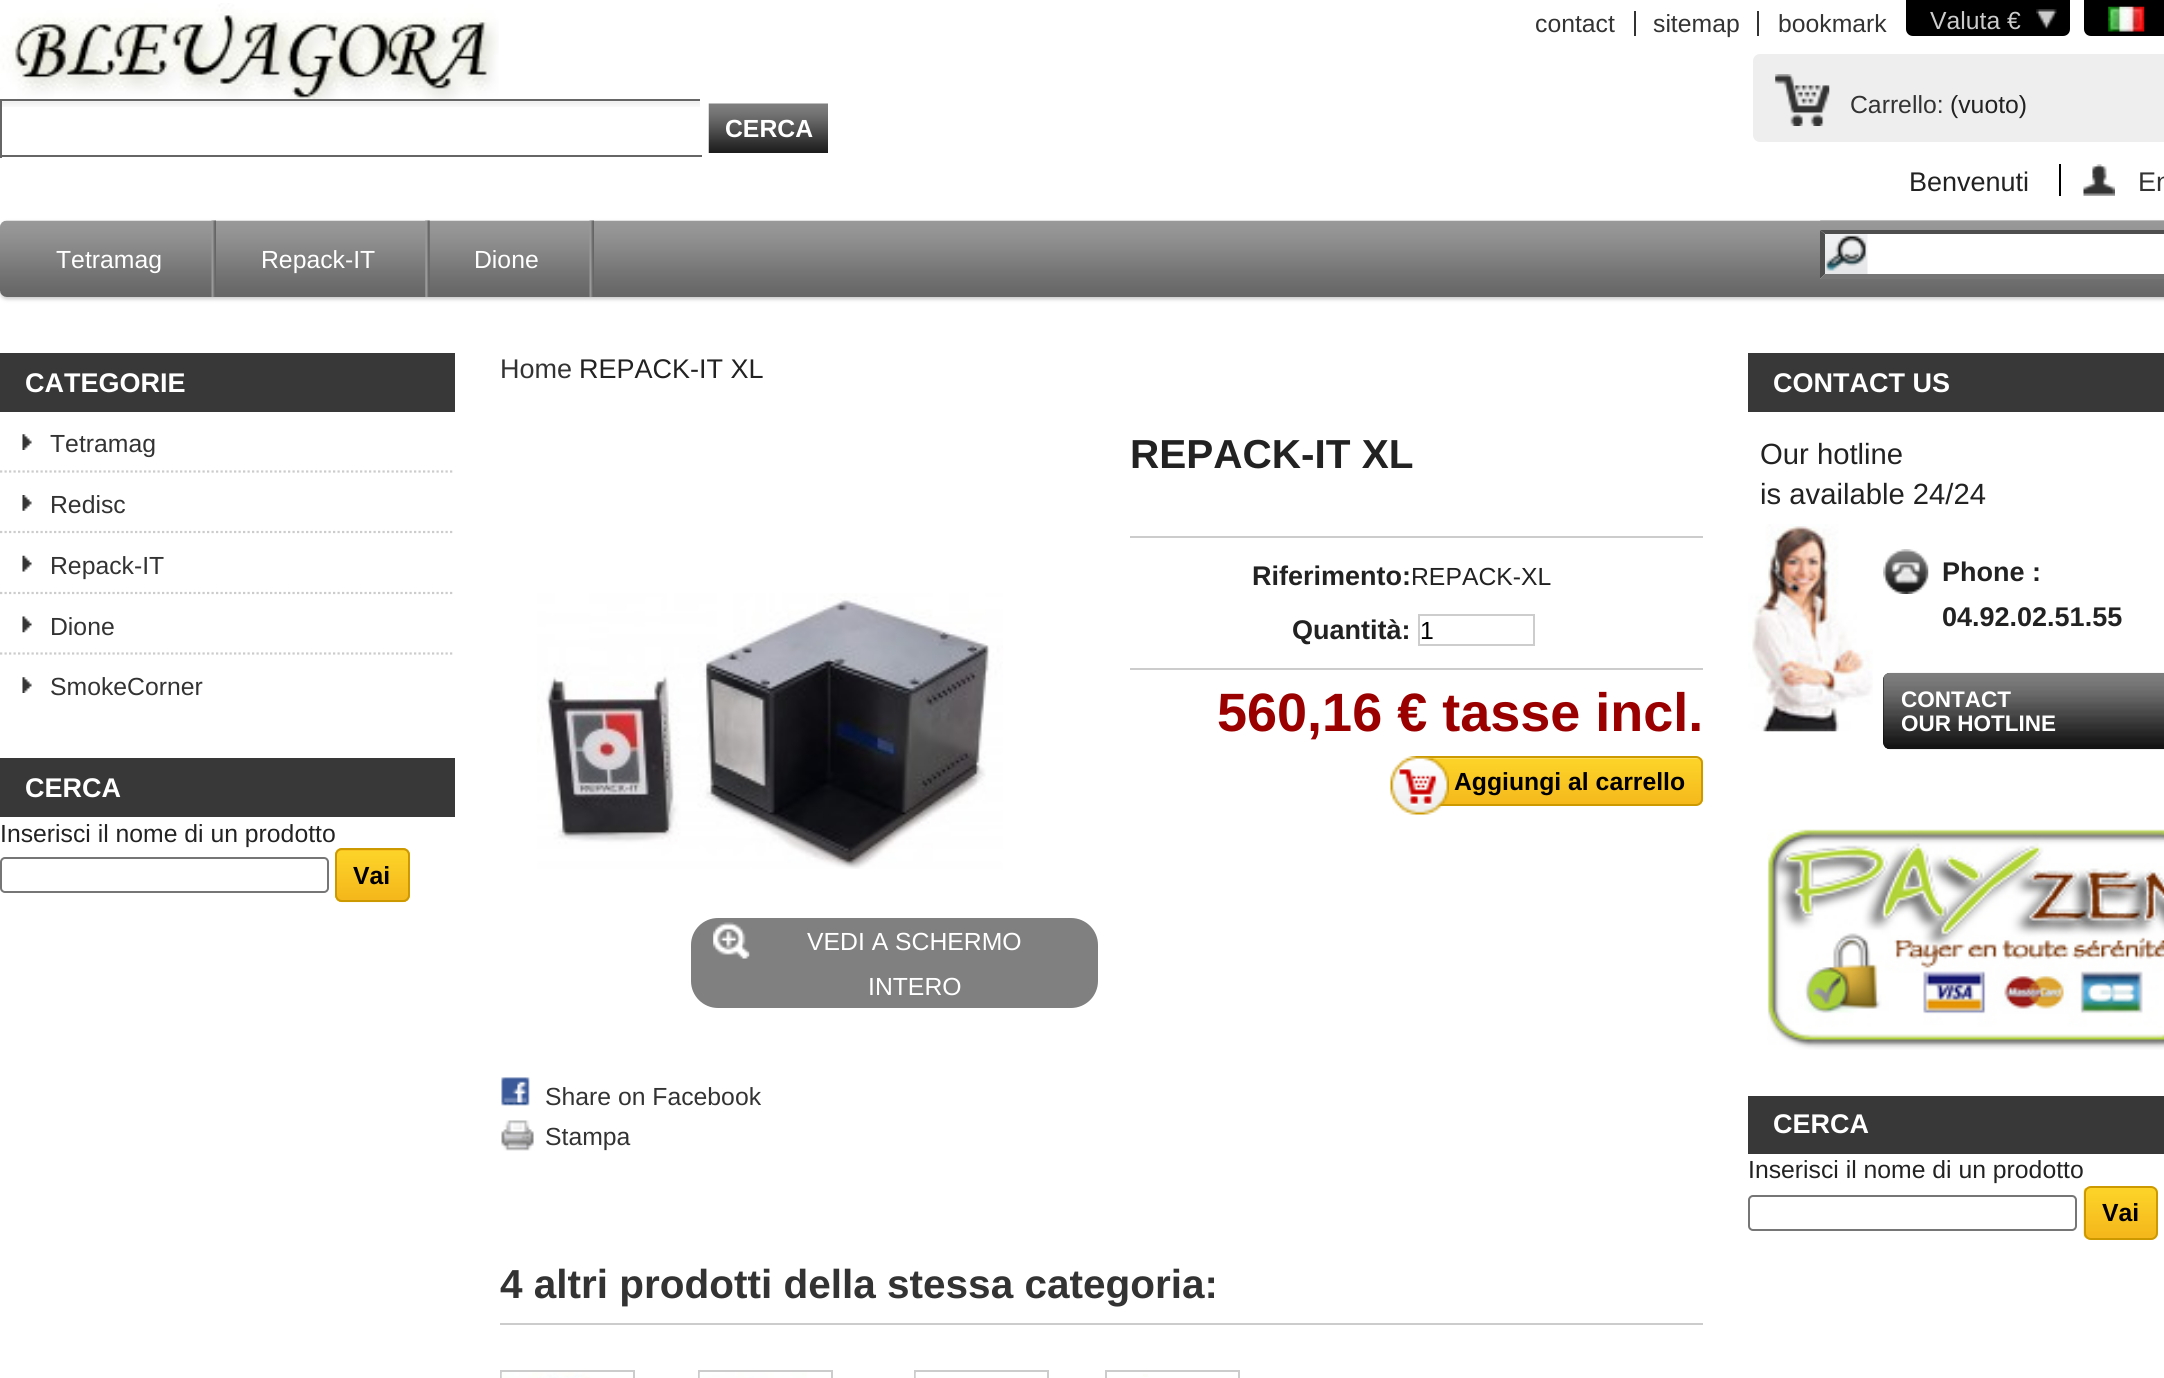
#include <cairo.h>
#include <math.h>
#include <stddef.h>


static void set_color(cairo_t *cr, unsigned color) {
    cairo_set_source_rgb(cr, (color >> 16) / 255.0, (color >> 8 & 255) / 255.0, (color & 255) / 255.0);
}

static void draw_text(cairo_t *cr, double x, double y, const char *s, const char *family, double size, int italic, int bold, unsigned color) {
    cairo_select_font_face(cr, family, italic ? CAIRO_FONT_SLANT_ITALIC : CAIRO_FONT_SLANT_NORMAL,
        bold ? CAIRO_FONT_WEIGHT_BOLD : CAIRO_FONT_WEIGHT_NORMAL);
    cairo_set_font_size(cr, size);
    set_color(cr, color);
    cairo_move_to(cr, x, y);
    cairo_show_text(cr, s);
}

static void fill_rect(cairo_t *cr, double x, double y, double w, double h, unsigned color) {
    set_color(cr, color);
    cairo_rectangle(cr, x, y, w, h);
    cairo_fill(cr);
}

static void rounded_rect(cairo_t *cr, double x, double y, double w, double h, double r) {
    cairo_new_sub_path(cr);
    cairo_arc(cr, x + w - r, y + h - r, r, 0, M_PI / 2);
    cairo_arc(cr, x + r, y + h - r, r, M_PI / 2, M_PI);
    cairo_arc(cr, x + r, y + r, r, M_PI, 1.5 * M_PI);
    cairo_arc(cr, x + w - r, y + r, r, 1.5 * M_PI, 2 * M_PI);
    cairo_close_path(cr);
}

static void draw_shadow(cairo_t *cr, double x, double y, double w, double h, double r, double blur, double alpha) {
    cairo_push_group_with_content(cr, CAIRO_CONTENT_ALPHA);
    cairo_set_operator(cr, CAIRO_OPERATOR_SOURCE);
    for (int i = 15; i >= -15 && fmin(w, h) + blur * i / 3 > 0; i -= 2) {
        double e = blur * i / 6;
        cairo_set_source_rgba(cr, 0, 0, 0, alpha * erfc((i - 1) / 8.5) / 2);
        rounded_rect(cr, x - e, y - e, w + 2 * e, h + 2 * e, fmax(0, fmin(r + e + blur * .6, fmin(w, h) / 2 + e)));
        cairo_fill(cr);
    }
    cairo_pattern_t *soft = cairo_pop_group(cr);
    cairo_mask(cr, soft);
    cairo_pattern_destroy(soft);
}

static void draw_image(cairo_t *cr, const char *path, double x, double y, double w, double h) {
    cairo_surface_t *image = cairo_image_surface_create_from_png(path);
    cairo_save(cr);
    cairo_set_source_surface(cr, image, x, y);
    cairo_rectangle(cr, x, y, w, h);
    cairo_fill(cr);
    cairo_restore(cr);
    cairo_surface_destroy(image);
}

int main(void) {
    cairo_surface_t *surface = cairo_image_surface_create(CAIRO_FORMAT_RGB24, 2164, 1378);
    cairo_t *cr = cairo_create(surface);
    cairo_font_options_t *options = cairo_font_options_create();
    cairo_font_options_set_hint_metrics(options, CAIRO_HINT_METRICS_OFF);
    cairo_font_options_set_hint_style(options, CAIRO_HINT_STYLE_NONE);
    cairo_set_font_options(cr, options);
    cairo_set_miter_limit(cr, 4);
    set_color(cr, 0xFFFFFF);
    cairo_paint(cr);
    draw_image(cr, "assets/img1.png", 0, 3, 499, 96);
    draw_text(cr, 1535, 32, "contact", "Liberation Sans", 24.75, 0, 0, 0x333333);
    fill_rect(cr, 1634, 11, 2, 25, 0x333333);
    draw_text(cr, 1653, 32, "sitemap", "Liberation Sans", 24.75, 0, 0, 0x333333);
    fill_rect(cr, 1757, 11, 2, 25, 0x333333);
    draw_text(cr, 1778, 32, "bookmark", "Liberation Sans", 24.75, 0, 0, 0x333333);
    set_color(cr, 0x000000);
    cairo_new_path(cr);
    cairo_move_to(cr, 1906, 0);
    cairo_line_to(cr, 2070, 0);
    cairo_line_to(cr, 2070, 29);
    cairo_curve_to(cr, 2070, 33, 2067, 36, 2063, 36);
    cairo_line_to(cr, 1913, 36);
    cairo_curve_to(cr, 1909, 36, 1906, 33, 1906, 29);
    cairo_close_path(cr);
    cairo_fill(cr);
    draw_image(cr, "assets/img2.png", 2036, 9, 21, 21);
    draw_text(cr, 1930, 29, "Valuta €", "Liberation Sans", 24.75, 0, 0, 0xCCCCCC);
    set_color(cr, 0x000000);
    cairo_new_path(cr);
    cairo_move_to(cr, 2084, 0);
    cairo_line_to(cr, 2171, 0);
    cairo_line_to(cr, 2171, 29);
    cairo_curve_to(cr, 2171, 33, 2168, 36, 2164, 36);
    cairo_line_to(cr, 2091, 36);
    cairo_curve_to(cr, 2087, 36, 2084, 33, 2084, 29);
    cairo_close_path(cr);
    cairo_fill(cr);
    draw_image(cr, "assets/img3.png", 2108, 6, 37, 26);
    set_color(cr, 0xEEEEEE);
    rounded_rect(cr, 1753, 54, 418, 88, 7);
    cairo_fill(cr);
    draw_image(cr, "assets/img4.png", 1775, 74, 55, 52);
    draw_text(cr, 1850, 113, "Carrello:", "Liberation Sans", 24.75, 0, 0, 0x333333);
    draw_text(cr, 1950, 113, "(vuoto)", "Liberation Sans", 24.75, 0, 0, 0x222222);
    draw_text(cr, 1909, 191, "Benvenuti", "Liberation Sans", 27, 0, 0, 0x222222);
    draw_image(cr, "assets/img5.png", 2083, 164, 32, 32);
    fill_rect(cr, 2059, 164, 2, 32, 0x000000);
    draw_text(cr, 2138, 191, "En", "Liberation Sans", 27, 0, 0, 0x333333);
    draw_image(cr, "assets/img6.png", 2, 101, 698, 6);
    fill_rect(cr, 0, 99, 702, 2, 0x666666);
    fill_rect(cr, 700, 99, 2, 2, 0xFFFFFF);
    fill_rect(cr, 0, 155, 702, 2, 0x666666);
    fill_rect(cr, 0, 99, 2, 59, 0x666666);
    draw_image(cr, "assets/img7.png", 708, 103, 120, 50);
    draw_text(cr, 725, 137, "CERCA", "Liberation Sans", 24.75, 0, 1, 0xFFFFFF);
    set_color(cr, 0xC6C6C6);
    draw_shadow(cr, 0, 223, 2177, 76, 7, 2, 1);
    draw_image(cr, "assets/img8.png", 0, 220, 2164, 77);
    draw_image(cr, "assets/img9.png", 211, 220, 5, 77);
    draw_text(cr, 56, 268, "Tetramag", "Liberation Sans", 24.75, 0, 0, 0xFFFFFF);
    draw_image(cr, "assets/img10.png", 425, 220, 5, 77);
    draw_text(cr, 261, 268, "Repack-IT", "Liberation Sans", 24.75, 0, 0, 0xFFFFFF);
    draw_image(cr, "assets/img9.png", 589, 220, 5, 77);
    draw_text(cr, 474, 268, "Dione", "Liberation Sans", 24.75, 0, 0, 0xFFFFFF);
    draw_image(cr, "assets/img11.png", 1820, 220, 344, 1);
    fill_rect(cr, 1820, 230, 344, 49, 0xFFFFFF);
    draw_image(cr, "assets/img12.png", 1824, 234, 44, 41);
    set_color(cr, 0x4F4F4F);
    cairo_new_path(cr);
    cairo_move_to(cr, 1820, 230);
    cairo_line_to(cr, 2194, 230);
    cairo_line_to(cr, 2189, 234);
    cairo_line_to(cr, 1825, 234);
    cairo_close_path(cr);
    cairo_fill(cr);
    set_color(cr, 0x767676);
    cairo_new_path(cr);
    cairo_move_to(cr, 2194, 279);
    cairo_line_to(cr, 1820, 279);
    cairo_line_to(cr, 1825, 274);
    cairo_line_to(cr, 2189, 274);
    cairo_close_path(cr);
    cairo_fill(cr);
    set_color(cr, 0x4F4F4F);
    cairo_new_path(cr);
    cairo_move_to(cr, 1820, 279);
    cairo_line_to(cr, 1820, 230);
    cairo_line_to(cr, 1825, 234);
    cairo_line_to(cr, 1825, 274);
    cairo_close_path(cr);
    cairo_fill(cr);
    fill_rect(cr, 0, 353, 455, 59, 0x383838);
    draw_text(cr, 25, 392, "CATEGORIE", "Liberation Sans", 27, 0, 1, 0xFFFFFF);
    cairo_new_path(cr);
    cairo_move_to(cr, 0, 471.5);
    cairo_line_to(cr, 454.5, 471.5);
    set_color(cr, 0xCCCCCC);
    cairo_set_line_width(cr, 2.2);
    cairo_set_dash(cr, (double[]){2.25, 2.25}, 2, 0);
    cairo_stroke(cr);
    draw_image(cr, "assets/img13.png", 22, 434, 10, 16);
    draw_text(cr, 50, 452, "Tetramag", "Liberation Sans", 24.75, 0, 0, 0x333333);
    cairo_new_path(cr);
    cairo_move_to(cr, 0, 532);
    cairo_line_to(cr, 454.5, 532);
    set_color(cr, 0xCCCCCC);
    cairo_stroke(cr);
    draw_image(cr, "assets/img14.png", 22, 495, 10, 16);
    draw_text(cr, 50, 513, "Redisc", "Liberation Sans", 24.75, 0, 0, 0x333333);
    cairo_new_path(cr);
    cairo_move_to(cr, 0, 593);
    cairo_line_to(cr, 454.5, 593);
    set_color(cr, 0xCCCCCC);
    cairo_stroke(cr);
    draw_image(cr, "assets/img15.png", 22, 555, 10, 17);
    draw_text(cr, 50, 574, "Repack-IT", "Liberation Sans", 24.75, 0, 0, 0x333333);
    cairo_new_path(cr);
    cairo_move_to(cr, 0, 653.5);
    cairo_line_to(cr, 454.5, 653.5);
    set_color(cr, 0xCCCCCC);
    cairo_stroke(cr);
    draw_image(cr, "assets/img16.png", 22, 616, 10, 17);
    draw_text(cr, 50, 635, "Dione", "Liberation Sans", 24.75, 0, 0, 0x333333);
    draw_image(cr, "assets/img13.png", 22, 677, 10, 16);
    draw_text(cr, 50, 695, "SmokeCorner", "Liberation Sans", 24.75, 0, 0, 0x333333);
    fill_rect(cr, 0, 758, 455, 59, 0x383838);
    draw_text(cr, 25, 797, "CERCA", "Liberation Sans", 27, 0, 1, 0xFFFFFF);
    draw_text(cr, 0, 842, "Inserisci il nome di un prodotto", "Liberation Sans", 24.75, 0, 0, 0x222222);
    rounded_rect(cr, 1, 858, 327, 34, 4);
    set_color(cr, 0x767676);
    cairo_set_line_width(cr, 2);
    cairo_set_dash(cr, NULL, 0, 0);
    cairo_stroke(cr);
    set_color(cr, 0xF4B61B);
    rounded_rect(cr, 335, 848, 75, 54, 7);
    cairo_fill(cr);
    draw_image(cr, "assets/img17.png", 335, 850, 75, 53);
    rounded_rect(cr, 336, 849, 73, 52, 6);
    set_color(cr, 0xCC9900);
    cairo_stroke(cr);
    draw_text(cr, 353, 884, "Vai", "Liberation Sans", 24.75, 0, 1, 0x000000);
    draw_text(cr, 500, 378, "Home", "Liberation Sans", 27, 0, 0, 0x333333);
    draw_text(cr, 579, 378, "REPACK-IT XL", "Liberation Sans", 27, 0, 0, 0x222222);
    draw_text(cr, 1130, 468, "REPACK-IT XL", "Liberation Sans", 40.5, 0, 1, 0x222222);
    fill_rect(cr, 1130, 536, 573, 2, 0xCCCCCC);
    fill_rect(cr, 1130, 668, 573, 2, 0xCCCCCC);
    draw_text(cr, 1252, 585, "Riferimento:", "Liberation Sans", 27, 0, 1, 0x222222);
    draw_text(cr, 1411, 585, "REPACK-XL", "Liberation Sans", 24.75, 0, 0, 0x222222);
    draw_text(cr, 1292, 639, "Quantità:", "Liberation Sans", 27, 0, 1, 0x222222);
    cairo_rectangle(cr, 1419, 615, 115, 30);
    set_color(cr, 0xCDCDCD);
    cairo_stroke(cr);
    draw_text(cr, 1420, 639, "1", "Liberation Sans", 24.75, 0, 0, 0x000000);
    draw_text(cr, 1217, 731, "560,16 € tasse incl.", "Liberation Sans", 54, 0, 1, 0x9B0000);
    draw_image(cr, "assets/img19.png", 1423, 758, 281, 48);
    rounded_rect(cr, 1419, 757, 283, 48, 6);
    set_color(cr, 0xCC9900);
    cairo_stroke(cr);
    draw_image(cr, "assets/img18.png", 1390, 756, 59, 59);
    draw_text(cr, 1454, 790, "Aggiungi al carrello", "Liberation Sans", 24.75, 0, 1, 0x000000);
    draw_image(cr, "assets/img20.png", 537, 593, 466, 276);
    set_color(cr, 0x808080);
    rounded_rect(cr, 691, 918, 407, 90, 27);
    cairo_fill(cr);
    draw_image(cr, "assets/img21.png", 713, 922, 37, 37);
    draw_text(cr, 807, 950, "VEDI A SCHERMO", "Liberation Sans", 24.75, 0, 0, 0xFFFFFF);
    draw_text(cr, 868, 995, "INTERO", "Liberation Sans", 24.75, 0, 0, 0xFFFFFF);
    draw_image(cr, "assets/img22.png", 501, 1077, 29, 29);
    draw_text(cr, 545, 1105, "Share on Facebook", "Liberation Sans", 24.75, 0, 0, 0x333333);
    draw_image(cr, "assets/img23.png", 501, 1120, 33, 31);
    draw_text(cr, 545, 1145, "Stampa", "Liberation Sans", 24.75, 0, 0, 0x333333);
    fill_rect(cr, 500, 1323, 1203, 2, 0xCCCCCC);
    draw_text(cr, 500, 1298, "4 altri prodotti della stessa categoria:", "Liberation Sans", 40.5, 0, 1, 0x333333);
    cairo_rectangle(cr, 501, 1371, 133, 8);
    set_color(cr, 0xCCCCCC);
    cairo_stroke(cr);
    draw_image(cr, "assets/img24.png", 501, 1372, 89, 6);
    cairo_rectangle(cr, 699, 1371, 133, 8);
    cairo_stroke(cr);
    draw_image(cr, "assets/img25.png", 699, 1372, 108, 6);
    cairo_rectangle(cr, 915, 1371, 133, 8);
    cairo_stroke(cr);
    draw_image(cr, "assets/img26.png", 915, 1372, 1, 6);
    cairo_rectangle(cr, 1106, 1371, 133, 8);
    cairo_stroke(cr);
    fill_rect(cr, 1143, 1374, 5, 3, 0xFDFEF9);
    fill_rect(cr, 1748, 353, 416, 59, 0x383838);
    draw_text(cr, 1773, 392, "CONTACT US", "Liberation Sans", 27, 0, 1, 0xFFFFFF);
    draw_image(cr, "assets/img27.png", 1748, 524, 125, 208);
    draw_text(cr, 1760, 464, "Our hotline", "Liberation Sans", 29.25, 0, 0, 0x222222);
    draw_text(cr, 1760, 504, "is available 24/24", "Liberation Sans", 29.25, 0, 0, 0x222222);
    draw_image(cr, "assets/img28.png", 1883, 549, 46, 45);
    draw_text(cr, 1942, 581, "Phone :", "Liberation Sans", 27, 0, 1, 0x222222);
    draw_text(cr, 1942, 626, "04.92.02.51.55", "Liberation Sans", 27, 0, 1, 0x222222);
    set_color(cr, 0x000000);
    rounded_rect(cr, 1883, 673, 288, 76, 7);
    cairo_fill(cr);
    draw_image(cr, "assets/img29.png", 1883, 672, 281, 78);
    draw_text(cr, 1901, 707, "CONTACT", "Liberation Sans", 22.5, 0, 1, 0xFFFFFF);
    draw_text(cr, 1901, 731, "OUR HOTLINE", "Liberation Sans", 22.5, 0, 1, 0xFFFFFF);
    draw_image(cr, "assets/img30.png", 1767, 829, 397, 221);
    fill_rect(cr, 1748, 1096, 416, 58, 0x383838);
    draw_text(cr, 1773, 1133, "CERCA", "Liberation Sans", 27, 0, 1, 0xFFFFFF);
    draw_text(cr, 1748, 1178, "Inserisci il nome di un prodotto", "Liberation Sans", 24.75, 0, 0, 0x222222);
    rounded_rect(cr, 1749, 1196, 327, 34, 4);
    set_color(cr, 0x767676);
    cairo_stroke(cr);
    draw_image(cr, "assets/img31.png", 2083, 1188, 75, 52);
    rounded_rect(cr, 2085, 1187, 72, 52, 6);
    set_color(cr, 0xCC9900);
    cairo_stroke(cr);
    draw_text(cr, 2102, 1221, "Vai", "Liberation Sans", 24.75, 0, 1, 0x000000);
    cairo_surface_write_to_png(surface, "output.png");
    cairo_font_options_destroy(options);
    cairo_destroy(cr);
    cairo_surface_destroy(surface);
    return 0;
}
